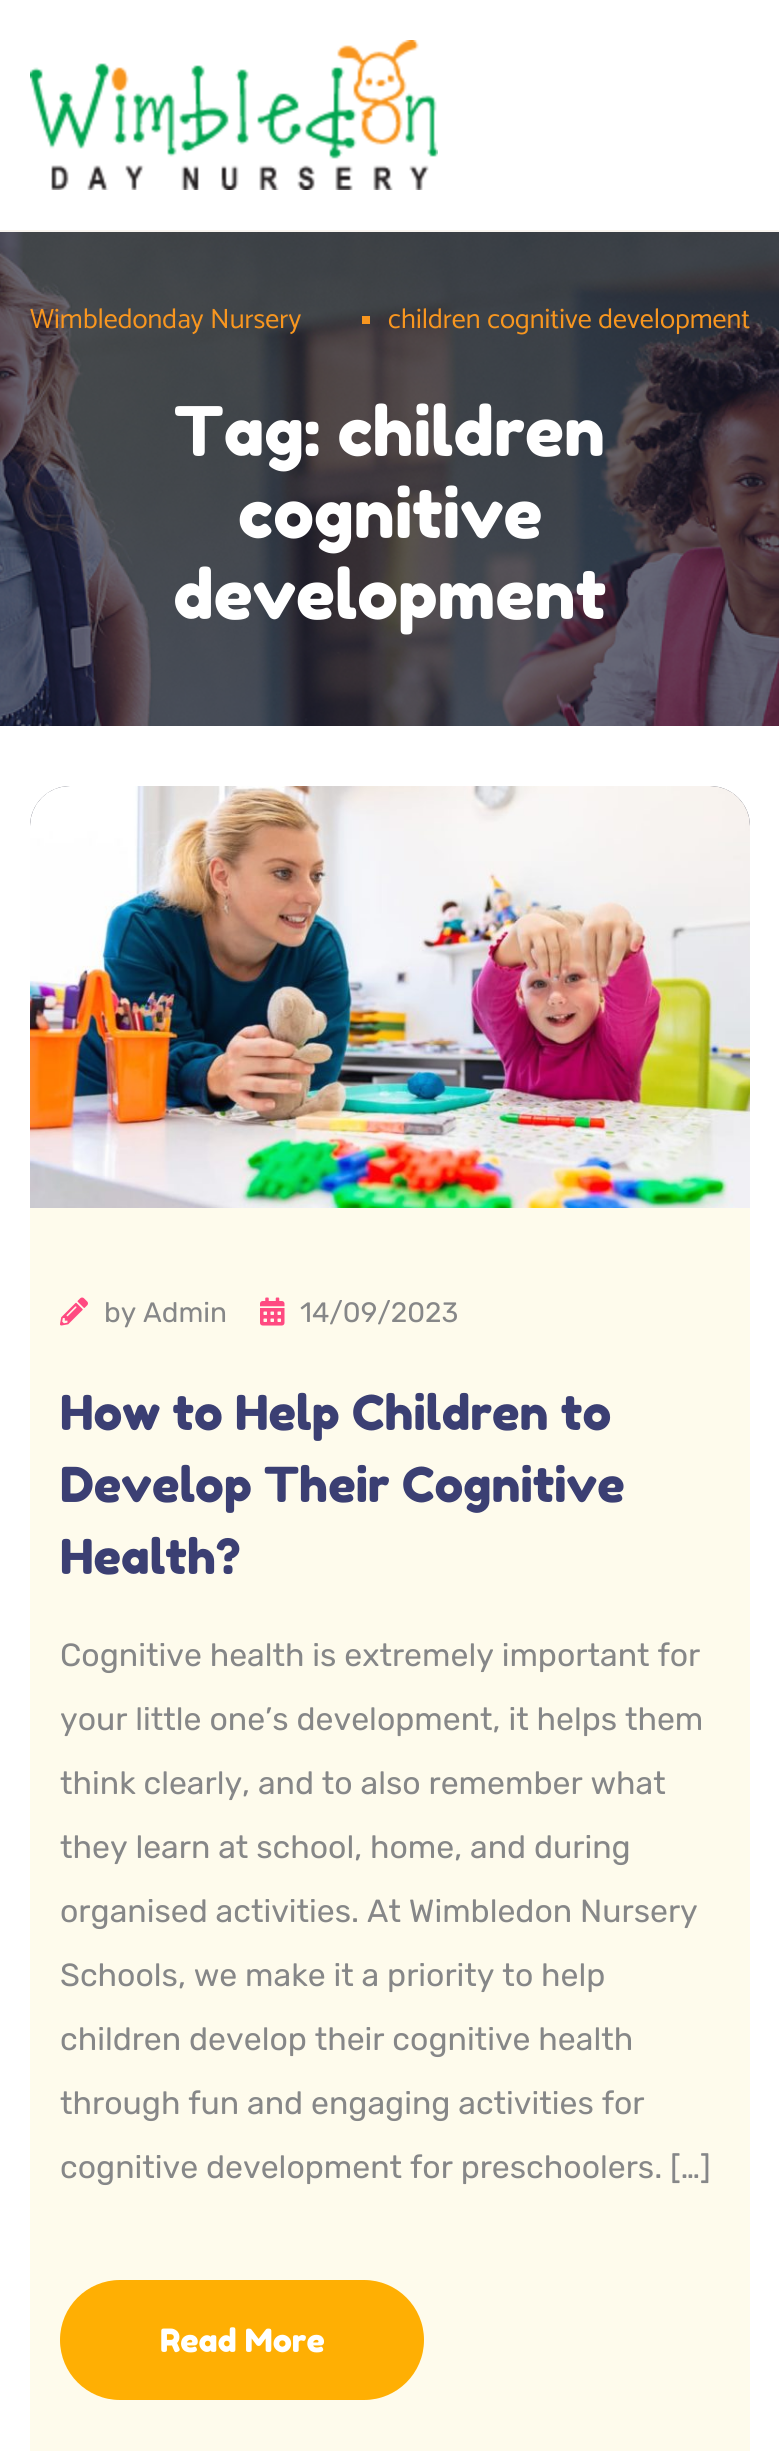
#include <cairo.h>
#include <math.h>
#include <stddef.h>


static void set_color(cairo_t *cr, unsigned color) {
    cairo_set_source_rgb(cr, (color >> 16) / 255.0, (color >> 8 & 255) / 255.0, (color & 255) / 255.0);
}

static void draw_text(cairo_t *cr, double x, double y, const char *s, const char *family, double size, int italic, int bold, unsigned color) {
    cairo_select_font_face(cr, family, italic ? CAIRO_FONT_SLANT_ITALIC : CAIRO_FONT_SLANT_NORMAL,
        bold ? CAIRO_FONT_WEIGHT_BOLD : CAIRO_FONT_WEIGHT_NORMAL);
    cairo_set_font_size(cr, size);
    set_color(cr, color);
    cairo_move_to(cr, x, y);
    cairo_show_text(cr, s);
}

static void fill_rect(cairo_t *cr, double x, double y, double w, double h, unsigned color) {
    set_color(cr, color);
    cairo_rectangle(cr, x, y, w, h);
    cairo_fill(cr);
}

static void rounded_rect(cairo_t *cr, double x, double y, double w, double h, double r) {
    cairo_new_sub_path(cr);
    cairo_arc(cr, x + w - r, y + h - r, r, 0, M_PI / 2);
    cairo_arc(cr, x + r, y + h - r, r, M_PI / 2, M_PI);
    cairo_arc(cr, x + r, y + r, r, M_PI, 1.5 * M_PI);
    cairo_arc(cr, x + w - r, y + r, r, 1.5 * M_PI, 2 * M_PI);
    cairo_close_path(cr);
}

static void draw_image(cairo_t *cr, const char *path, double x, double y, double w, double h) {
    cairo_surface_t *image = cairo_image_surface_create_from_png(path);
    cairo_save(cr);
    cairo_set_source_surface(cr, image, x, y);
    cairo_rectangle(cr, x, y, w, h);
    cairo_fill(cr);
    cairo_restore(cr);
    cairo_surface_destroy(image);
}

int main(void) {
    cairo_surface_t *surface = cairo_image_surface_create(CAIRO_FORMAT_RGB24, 779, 2451);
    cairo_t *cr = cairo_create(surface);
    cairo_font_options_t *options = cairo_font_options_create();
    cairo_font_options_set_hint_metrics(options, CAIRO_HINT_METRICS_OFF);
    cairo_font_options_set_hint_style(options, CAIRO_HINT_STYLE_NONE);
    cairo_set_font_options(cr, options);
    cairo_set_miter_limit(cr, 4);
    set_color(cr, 0xFFFFFF);
    cairo_paint(cr);
    fill_rect(cr, 0, 230, 779, 2, 0xF9F5F0);
    draw_image(cr, "assets/img1.png", 30, 40, 408, 150);
    draw_image(cr, "assets/img2.png", 0, 232, 779, 494);
    draw_text(cr, 30, 328, "Wimbledonday Nursery", "Catamaran", 28, 0, 0, 0xF8961F);
    fill_rect(cr, 362, 316, 8, 8, 0xF8961F);
    draw_text(cr, 388, 328, "children cognitive development", "Catamaran", 28, 0, 0, 0xF8961F);
    draw_text(cr, 174, 456, "Tag: children", "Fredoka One", 68, 0, 0, 0xFFFFFF);
    draw_text(cr, 238, 538, "cognitive", "Fredoka One", 68, 0, 0, 0xFFFFFF);
    draw_text(cr, 173, 619, "development", "Fredoka One", 68, 0, 0, 0xFFFFFF);
    set_color(cr, 0x676876);
    cairo_new_path(cr);
    cairo_move_to(cr, 70, 786);
    cairo_line_to(cr, 710, 786);
    cairo_curve_to(cr, 732, 786, 750, 804, 750, 826);
    cairo_line_to(cr, 750, 1208);
    cairo_line_to(cr, 30, 1208);
    cairo_line_to(cr, 30, 826);
    cairo_curve_to(cr, 30, 804, 48, 786, 70, 786);
    cairo_close_path(cr);
    cairo_fill(cr);
    draw_image(cr, "assets/img3.png", 30, 786, 720, 422);
    fill_rect(cr, 30, 1208, 720, 1243, 0xFEFBEC);
    draw_image(cr, "assets/img4.png", 60, 1297, 28, 29);
    draw_text(cr, 104, 1322, "by Admin", "Rubik Light", 28, 0, 0, 0x868788);
    draw_image(cr, "assets/img5.png", 260, 1297, 25, 29);
    draw_text(cr, 300, 1322, "14/09/2023", "Rubik Light", 28, 0, 0, 0x868788);
    draw_text(cr, 60, 1430, "How to Help Children to", "Fredoka One", 48, 0, 0, 0x3B3F73);
    draw_text(cr, 60, 1502, "Develop Their Cognitive", "Fredoka One", 48, 0, 0, 0x3B3F73);
    draw_text(cr, 60, 1574, "Health?", "Fredoka One", 48, 0, 0, 0x3B3F73);
    draw_text(cr, 60, 1666, "Cognitive health is extremely important for", "Rubik Light", 32, 0, 0, 0x868788);
    draw_text(cr, 60, 1730, "your little one’s development, it helps them", "Rubik Light", 32, 0, 0, 0x868788);
    draw_text(cr, 60, 1794, "think clearly, and to also remember what", "Rubik Light", 32, 0, 0, 0x868788);
    draw_text(cr, 60, 1858, "they learn at school, home, and during", "Rubik Light", 32, 0, 0, 0x868788);
    draw_text(cr, 60, 1922, "organised activities. At Wimbledon Nursery", "Rubik Light", 32, 0, 0, 0x868788);
    draw_text(cr, 60, 1986, "Schools, we make it a priority to help", "Rubik Light", 32, 0, 0, 0x868788);
    draw_text(cr, 60, 2050, "children develop their cognitive health", "Rubik Light", 32, 0, 0, 0x868788);
    draw_text(cr, 60, 2114, "through fun and engaging activities for", "Rubik Light", 32, 0, 0, 0x868788);
    draw_text(cr, 60, 2178, "cognitive development for preschoolers. […]", "Rubik Light", 32, 0, 0, 0x868788);
    set_color(cr, 0xFFAF03);
    rounded_rect(cr, 60, 2280, 364, 120, 60);
    cairo_fill(cr);
    draw_text(cr, 160, 2352, "Read More", "Fredoka One", 32, 0, 0, 0xFFFFFF);
    cairo_surface_write_to_png(surface, "output.png");
    cairo_font_options_destroy(options);
    cairo_destroy(cr);
    cairo_surface_destroy(surface);
    return 0;
}
